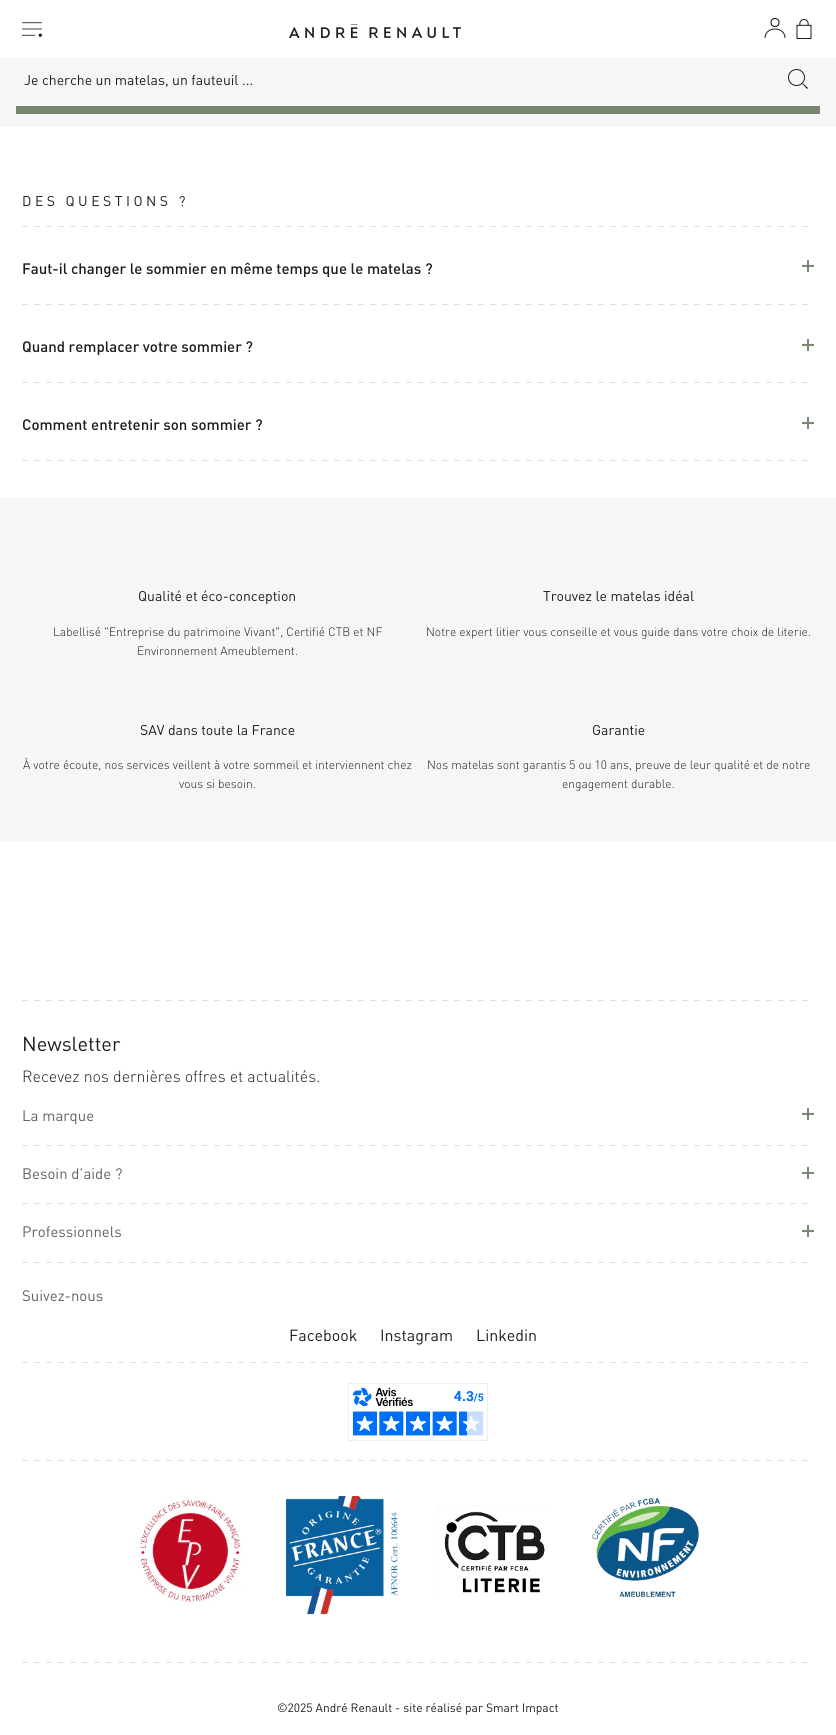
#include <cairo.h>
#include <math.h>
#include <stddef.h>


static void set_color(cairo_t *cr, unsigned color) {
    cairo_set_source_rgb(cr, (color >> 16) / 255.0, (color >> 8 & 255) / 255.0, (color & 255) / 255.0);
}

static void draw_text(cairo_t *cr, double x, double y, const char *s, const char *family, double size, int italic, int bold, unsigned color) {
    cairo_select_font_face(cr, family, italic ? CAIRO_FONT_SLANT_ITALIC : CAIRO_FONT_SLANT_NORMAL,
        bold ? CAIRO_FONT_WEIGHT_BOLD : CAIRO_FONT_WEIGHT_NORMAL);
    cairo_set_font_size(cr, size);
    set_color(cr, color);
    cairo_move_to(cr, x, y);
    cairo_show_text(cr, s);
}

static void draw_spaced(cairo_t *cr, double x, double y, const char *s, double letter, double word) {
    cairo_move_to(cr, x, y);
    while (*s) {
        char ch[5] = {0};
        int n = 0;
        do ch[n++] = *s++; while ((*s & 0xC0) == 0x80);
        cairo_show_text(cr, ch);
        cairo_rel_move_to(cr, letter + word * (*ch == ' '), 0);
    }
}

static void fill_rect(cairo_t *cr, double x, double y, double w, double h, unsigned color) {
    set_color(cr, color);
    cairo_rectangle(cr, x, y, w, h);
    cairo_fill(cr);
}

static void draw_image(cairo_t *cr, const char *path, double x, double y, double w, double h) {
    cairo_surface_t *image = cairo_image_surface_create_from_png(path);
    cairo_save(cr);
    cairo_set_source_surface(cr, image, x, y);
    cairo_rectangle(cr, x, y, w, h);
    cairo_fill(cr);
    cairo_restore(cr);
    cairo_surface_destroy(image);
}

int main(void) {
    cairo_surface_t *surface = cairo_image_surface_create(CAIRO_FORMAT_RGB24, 836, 1735);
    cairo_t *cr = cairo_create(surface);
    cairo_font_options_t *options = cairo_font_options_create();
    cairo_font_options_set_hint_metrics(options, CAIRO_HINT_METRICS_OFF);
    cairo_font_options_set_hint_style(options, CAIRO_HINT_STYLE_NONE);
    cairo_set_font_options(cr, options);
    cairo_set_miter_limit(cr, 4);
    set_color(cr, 0xFFFFFF);
    cairo_paint(cr);
    draw_image(cr, "assets/img1.png", 22, 22, 20, 15);
    draw_image(cr, "assets/img2.png", 289, 24, 172, 14);
    cairo_new_path(cr);
    cairo_move_to(cr, 785, 38);
    cairo_curve_to(cr, 785, 26, 765, 26, 765, 38);
    set_color(cr, 0x1D1D1B);
    cairo_set_line_width(cr, 1);
    cairo_stroke(cr);
    cairo_arc(cr, 775, 22.5, 4, 0, 2 * M_PI);
    set_color(cr, 0x000000);
    cairo_stroke(cr);
    draw_image(cr, "assets/img3.png", 796, 19, 16, 20);
    fill_rect(cr, 0, 58, 836, 48, 0xF6F6F6);
    draw_text(cr, 24, 85, "Je cherche un matelas, un fauteuil ...", "DIN", 14, 0, 0, 0x1D1D1B);
    cairo_new_path(cr);
    cairo_arc(cr, 796.5, 77.5, 8, 0, 2 * M_PI);
    cairo_stroke(cr);
    cairo_new_path(cr);
    cairo_move_to(cr, 802, 83.5);
    cairo_line_to(cr, 802.5, 83);
    cairo_line_to(cr, 808, 88);
    cairo_line_to(cr, 807, 89);
    cairo_close_path(cr);
    cairo_fill(cr);
    fill_rect(cr, 0, 106, 836, 21, 0xF6F6F6);
    fill_rect(cr, 16, 106, 804, 8, 0x798772);
    set_color(cr, 0x1D1D1B);
    draw_spaced(cr, 22, 206, "DES QUESTIONS ?", 3.5, 0);
    cairo_save(cr);
    cairo_rectangle(cr, 22, 226, 792, 1);
    cairo_clip(cr);
    cairo_new_path(cr);
    cairo_move_to(cr, 22, 226.5);
    cairo_line_to(cr, 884, 226.5);
    set_color(cr, 0xDDE1DC);
    cairo_set_dash(cr, (double[]){6, 6}, 2, 0);
    cairo_stroke(cr);
    cairo_restore(cr);
    draw_text(cr, 22, 274, "Faut-il changer le sommier en même temps que le matelas ?", "DIN Medium", 15, 0, 0, 0x1D1D1B);
    fill_rect(cr, 802, 265, 12, 2, 0x798772);
    fill_rect(cr, 807, 260, 2, 12, 0x798772);
    cairo_save(cr);
    cairo_rectangle(cr, 22, 304, 792, 1);
    cairo_clip(cr);
    cairo_new_path(cr);
    cairo_move_to(cr, 22, 304.5);
    cairo_line_to(cr, 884, 304.5);
    set_color(cr, 0xDDE1DC);
    cairo_set_dash(cr, (double[]){6, 6}, 2, 0);
    cairo_stroke(cr);
    cairo_restore(cr);
    draw_text(cr, 22, 352, "Quand remplacer votre sommier ?", "DIN Medium", 15, 0, 0, 0x1D1D1B);
    fill_rect(cr, 802, 344, 12, 2, 0x798772);
    fill_rect(cr, 807, 339, 2, 12, 0x798772);
    cairo_save(cr);
    cairo_rectangle(cr, 22, 382, 792, 1);
    cairo_clip(cr);
    cairo_new_path(cr);
    cairo_move_to(cr, 22, 382.5);
    cairo_line_to(cr, 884, 382.5);
    set_color(cr, 0xDDE1DC);
    cairo_set_dash(cr, (double[]){6, 6}, 2, 0);
    cairo_stroke(cr);
    cairo_restore(cr);
    draw_text(cr, 22, 430, "Comment entretenir son sommier ?", "DIN Medium", 15, 0, 0, 0x1D1D1B);
    fill_rect(cr, 802, 422, 12, 2, 0x798772);
    fill_rect(cr, 807, 417, 2, 12, 0x798772);
    cairo_save(cr);
    cairo_rectangle(cr, 22, 460, 792, 1);
    cairo_clip(cr);
    cairo_new_path(cr);
    cairo_move_to(cr, 22, 460.5);
    cairo_line_to(cr, 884, 460.5);
    set_color(cr, 0xDDE1DC);
    cairo_set_dash(cr, (double[]){6, 6}, 2, 0);
    cairo_stroke(cr);
    cairo_restore(cr);
    fill_rect(cr, 0, 498, 836, 343, 0xF6F6F6);
    draw_text(cr, 138, 601, "Qualité et éco-conception", "DIN", 14, 0, 0, 0x1D1D1B);
    draw_text(cr, 53, 636, "Labellisé \"Entreprise du patrimoine Vivant\", Certifié CTB et NF", "DIN Light", 12, 0, 0, 0x1D1D1B);
    draw_text(cr, 137, 655, "Environnement Ameublement.", "DIN Light", 12, 0, 0, 0x1D1D1B);
    draw_text(cr, 543, 601, "Trouvez le matelas idéal", "DIN", 14, 0, 0, 0x1D1D1B);
    draw_text(cr, 426, 636, "Notre expert litier vous conseille et vous guide dans votre choix de literie.", "DIN Light", 12, 0, 0, 0x1D1D1B);
    draw_text(cr, 140, 735, "SAV dans toute la France", "DIN", 14, 0, 0, 0x1D1D1B);
    draw_text(cr, 23, 769, "À votre écoute, nos services veillent à votre sommeil et interviennent chez", "DIN Light", 12, 0, 0, 0x1D1D1B);
    draw_text(cr, 179, 788, "vous si besoin.", "DIN Light", 12, 0, 0, 0x1D1D1B);
    draw_text(cr, 592, 735, "Garantie", "DIN", 14, 0, 0, 0x1D1D1B);
    draw_text(cr, 427, 769, "Nos matelas sont garantis 5 ou 10 ans, preuve de leur qualité et de notre", "DIN Light", 12, 0, 0, 0x1D1D1B);
    draw_text(cr, 562, 788, "engagement durable.", "DIN Light", 12, 0, 0, 0x1D1D1B);
    cairo_save(cr);
    cairo_rectangle(cr, 22, 1000, 792, 1);
    cairo_clip(cr);
    cairo_new_path(cr);
    cairo_move_to(cr, 22, 1000.5);
    cairo_line_to(cr, 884, 1000.5);
    set_color(cr, 0xDDE1DC);
    cairo_set_dash(cr, (double[]){6, 6}, 2, 0);
    cairo_stroke(cr);
    cairo_restore(cr);
    draw_text(cr, 22, 1051, "Newsletter", "DIN", 20, 0, 0, 0x1D1D1B);
    draw_text(cr, 22, 1082, "Recevez nos dernières offres et actualités.", "DIN Light", 16, 0, 0, 0x1D1D1B);
    draw_text(cr, 22, 1121, "La marque", "DIN", 15, 0, 0, 0x61615F);
    fill_rect(cr, 802, 1113, 12, 2, 0x798772);
    fill_rect(cr, 807, 1108, 2, 12, 0x798772);
    cairo_save(cr);
    cairo_rectangle(cr, 22, 1145, 792, 1);
    cairo_clip(cr);
    cairo_new_path(cr);
    cairo_move_to(cr, 22, 1145.5);
    cairo_line_to(cr, 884, 1145.5);
    set_color(cr, 0xDDE1DC);
    cairo_set_dash(cr, (double[]){6, 6}, 2, 0);
    cairo_stroke(cr);
    cairo_restore(cr);
    draw_text(cr, 22, 1179, "Besoin d’aide ?", "DIN", 15, 0, 0, 0x61615F);
    fill_rect(cr, 802, 1172, 12, 2, 0x798772);
    fill_rect(cr, 807, 1167, 2, 12, 0x798772);
    cairo_save(cr);
    cairo_rectangle(cr, 22, 1203, 792, 1);
    cairo_clip(cr);
    cairo_new_path(cr);
    cairo_move_to(cr, 22, 1203.5);
    cairo_line_to(cr, 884, 1203.5);
    set_color(cr, 0xDDE1DC);
    cairo_set_dash(cr, (double[]){6, 6}, 2, 0);
    cairo_stroke(cr);
    cairo_restore(cr);
    draw_text(cr, 22, 1237, "Professionnels", "DIN", 15, 0, 0, 0x61615F);
    fill_rect(cr, 802, 1230, 12, 2, 0x798772);
    fill_rect(cr, 807, 1225, 2, 12, 0x798772);
    cairo_save(cr);
    cairo_rectangle(cr, 22, 1262, 792, 1);
    cairo_clip(cr);
    cairo_new_path(cr);
    cairo_move_to(cr, 22, 1262.5);
    cairo_line_to(cr, 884, 1262.5);
    set_color(cr, 0xDDE1DC);
    cairo_set_dash(cr, (double[]){6, 6}, 2, 0);
    cairo_stroke(cr);
    cairo_restore(cr);
    draw_text(cr, 22, 1301, "Suivez-nous", "DIN", 15, 0, 0, 0x61615F);
    draw_text(cr, 289, 1341, "Facebook", "DIN", 16, 0, 0, 0x1D1D1B);
    draw_text(cr, 380, 1341, "Instagram", "DIN", 16, 0, 0, 0x1D1D1B);
    draw_text(cr, 476, 1341, "Linkedin", "DIN", 16, 0, 0, 0x1D1D1B);
    cairo_save(cr);
    cairo_rectangle(cr, 22, 1362, 792, 1);
    cairo_clip(cr);
    cairo_new_path(cr);
    cairo_move_to(cr, 22, 1362.5);
    cairo_line_to(cr, 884, 1362.5);
    set_color(cr, 0xDDE1DC);
    cairo_set_dash(cr, (double[]){6, 6}, 2, 0);
    cairo_stroke(cr);
    cairo_restore(cr);
    draw_image(cr, "assets/img4.png", 348, 1383, 140, 58);
    cairo_save(cr);
    cairo_rectangle(cr, 22, 1460, 792, 1);
    cairo_clip(cr);
    cairo_new_path(cr);
    cairo_move_to(cr, 22, 1460.5);
    cairo_line_to(cr, 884, 1460.5);
    set_color(cr, 0xDDE1DC);
    cairo_set_dash(cr, (double[]){6, 6}, 2, 0);
    cairo_stroke(cr);
    cairo_restore(cr);
    draw_image(cr, "assets/img5.png", 140, 1497, 104, 109);
    draw_image(cr, "assets/img6.png", 286, 1496, 112, 119);
    draw_image(cr, "assets/img7.png", 438, 1505, 112, 90);
    draw_image(cr, "assets/img8.png", 592, 1498, 107, 100);
    cairo_save(cr);
    cairo_rectangle(cr, 22, 1662, 792, 1);
    cairo_clip(cr);
    cairo_new_path(cr);
    cairo_move_to(cr, 22, 1662.5);
    cairo_line_to(cr, 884, 1662.5);
    set_color(cr, 0xDDE1DC);
    cairo_set_dash(cr, (double[]){6, 6}, 2, 0);
    cairo_stroke(cr);
    cairo_restore(cr);
    draw_text(cr, 277, 1712, "©2025 André Renault - site réalisé par Smart Impact", "DIN", 12, 0, 0, 0x1D1D1B);
    cairo_surface_write_to_png(surface, "output.png");
    cairo_font_options_destroy(options);
    cairo_destroy(cr);
    cairo_surface_destroy(surface);
    return 0;
}
